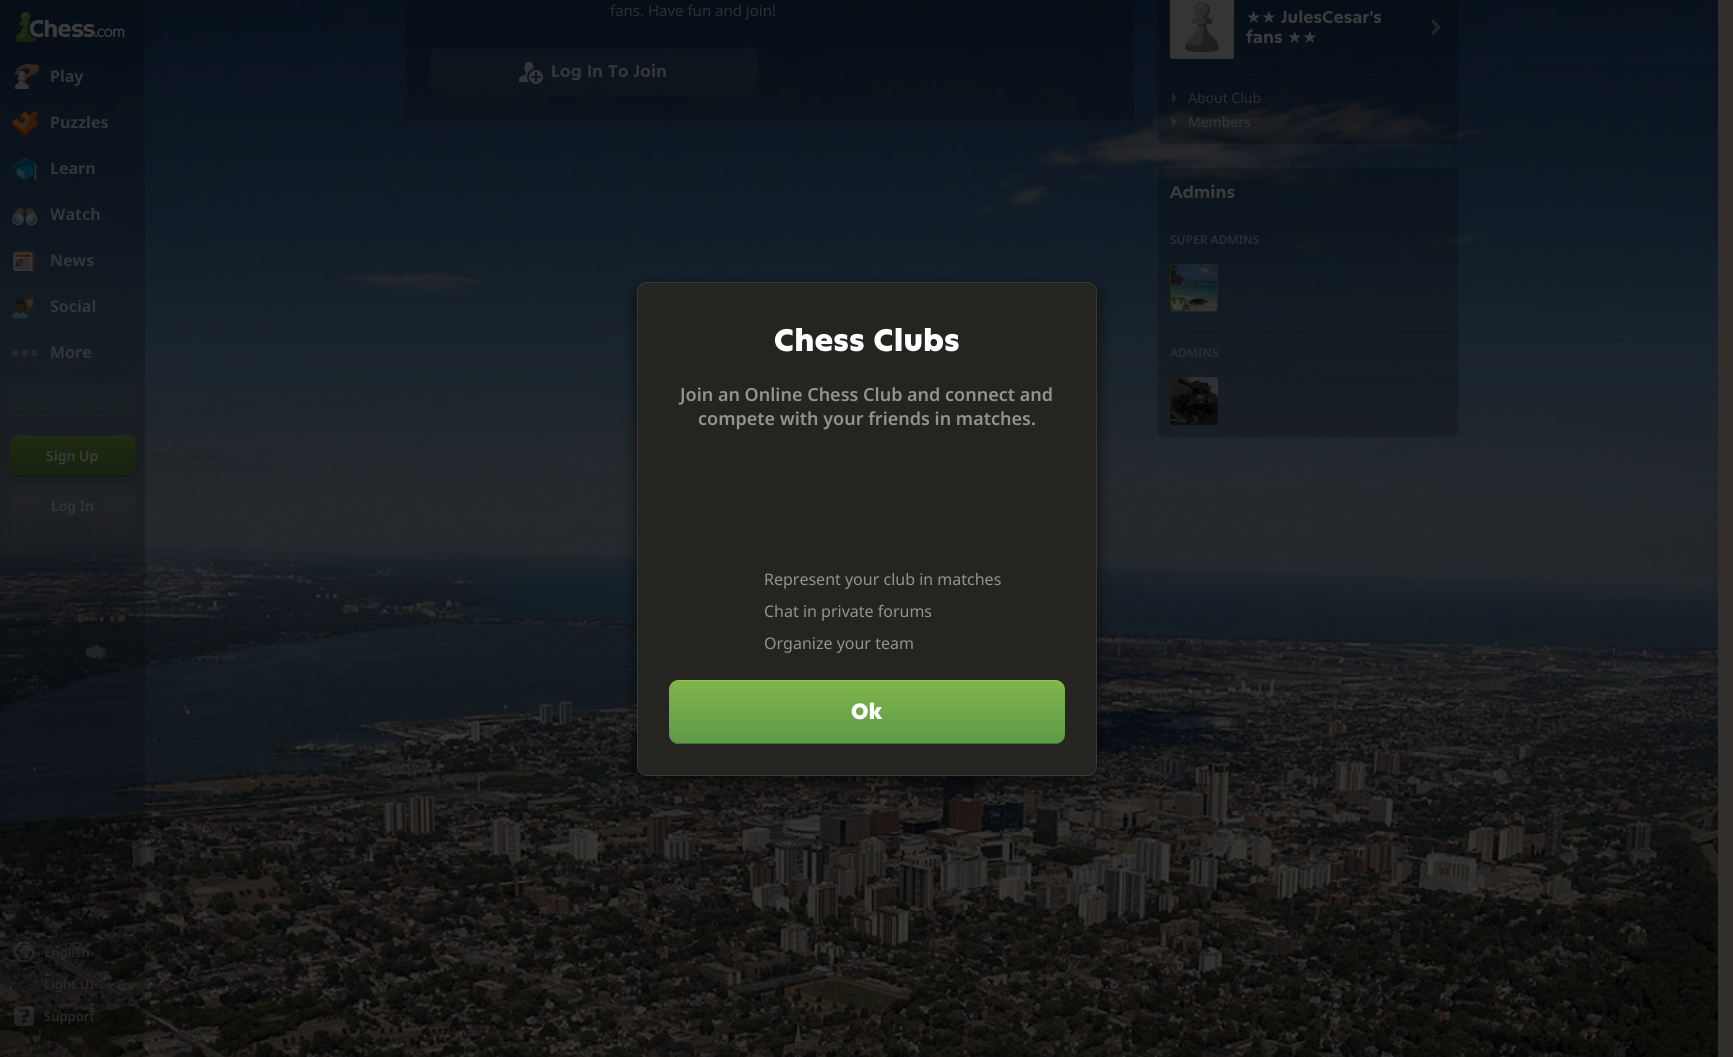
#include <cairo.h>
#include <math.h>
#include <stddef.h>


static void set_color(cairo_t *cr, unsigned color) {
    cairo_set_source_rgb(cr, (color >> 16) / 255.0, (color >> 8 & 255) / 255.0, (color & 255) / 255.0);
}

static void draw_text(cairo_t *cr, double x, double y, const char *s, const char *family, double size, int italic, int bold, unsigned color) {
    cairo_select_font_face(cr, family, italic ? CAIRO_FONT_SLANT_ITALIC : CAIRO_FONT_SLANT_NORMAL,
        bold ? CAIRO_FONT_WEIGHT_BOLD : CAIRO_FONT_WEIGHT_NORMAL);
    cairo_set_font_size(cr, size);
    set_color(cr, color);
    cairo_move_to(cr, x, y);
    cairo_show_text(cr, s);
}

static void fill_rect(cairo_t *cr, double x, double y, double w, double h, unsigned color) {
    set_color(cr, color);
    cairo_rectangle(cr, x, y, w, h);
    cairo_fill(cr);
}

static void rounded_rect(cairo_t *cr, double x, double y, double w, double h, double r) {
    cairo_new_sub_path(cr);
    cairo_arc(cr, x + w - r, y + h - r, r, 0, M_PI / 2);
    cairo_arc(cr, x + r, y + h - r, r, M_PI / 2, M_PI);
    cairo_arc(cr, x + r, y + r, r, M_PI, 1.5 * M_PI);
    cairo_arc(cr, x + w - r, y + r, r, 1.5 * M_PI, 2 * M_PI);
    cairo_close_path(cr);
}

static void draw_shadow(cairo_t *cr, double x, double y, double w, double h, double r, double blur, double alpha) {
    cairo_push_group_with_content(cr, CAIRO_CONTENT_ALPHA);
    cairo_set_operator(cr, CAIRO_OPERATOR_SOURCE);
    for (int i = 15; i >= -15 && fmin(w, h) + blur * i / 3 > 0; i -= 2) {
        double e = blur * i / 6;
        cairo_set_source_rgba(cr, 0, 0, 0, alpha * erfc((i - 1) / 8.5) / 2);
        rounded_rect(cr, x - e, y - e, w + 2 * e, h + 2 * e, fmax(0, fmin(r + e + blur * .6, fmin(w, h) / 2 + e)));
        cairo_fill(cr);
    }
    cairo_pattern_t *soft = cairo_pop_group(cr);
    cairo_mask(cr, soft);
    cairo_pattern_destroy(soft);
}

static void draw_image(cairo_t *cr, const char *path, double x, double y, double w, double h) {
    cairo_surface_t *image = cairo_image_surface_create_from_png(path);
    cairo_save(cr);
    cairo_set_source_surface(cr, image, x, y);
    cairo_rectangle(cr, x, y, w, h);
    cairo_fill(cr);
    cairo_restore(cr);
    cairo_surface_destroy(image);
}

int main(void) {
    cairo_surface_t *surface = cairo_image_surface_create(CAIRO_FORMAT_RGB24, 1733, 1057);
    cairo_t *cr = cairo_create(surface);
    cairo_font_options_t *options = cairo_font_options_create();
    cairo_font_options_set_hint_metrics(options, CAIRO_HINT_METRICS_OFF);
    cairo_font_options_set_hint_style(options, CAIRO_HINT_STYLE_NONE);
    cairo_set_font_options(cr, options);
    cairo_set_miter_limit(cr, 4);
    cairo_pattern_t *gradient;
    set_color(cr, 0x312E2B);
    cairo_paint(cr);
    draw_image(cr, "assets/img1.png", 0, 0, 1718, 1057);
    cairo_set_source_rgba(cr, 0, 0, 0, 0.2);
    rounded_rect(cr, 406, -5, 728, 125, 5);
    cairo_fill(cr);
    draw_text(cr, 610, 16, "fans. Have fun and join!", "Noto Sans", 15, 0, 0, 0x2C2E31);
    gradient = cairo_pattern_create_linear(594, 48, 594, 96);
    cairo_pattern_add_color_stop_rgba(gradient, 0, 0.231, 0.231, 0.231, 0.1);
    cairo_pattern_add_color_stop_rgba(gradient, 1, 0.231, 0.231, 0.231, 0.05);
    cairo_set_source(cr, gradient);
    cairo_pattern_destroy(gradient);
    rounded_rect(cr, 430, 48, 328, 48, 10);
    cairo_fill(cr);
    cairo_set_source_rgba(cr, 0.231, 0.231, 0.231, 0.08);
    cairo_new_path(cr);
    cairo_move_to(cr, 440, 49);
    cairo_line_to(cr, 748, 49);
    cairo_curve_to(cr, 754, 49, 758, 53, 758, 59);
    cairo_line_to(cr, 758, 58);
    cairo_curve_to(cr, 758, 52, 754, 48, 748, 48);
    cairo_line_to(cr, 440, 48);
    cairo_curve_to(cr, 434, 48, 430, 52, 430, 58);
    cairo_line_to(cr, 430, 59);
    cairo_curve_to(cr, 430, 53, 434, 49, 440, 49);
    cairo_close_path(cr);
    cairo_fill(cr);
    draw_image(cr, "assets/img2.png", 519, 61, 24, 23);
    draw_text(cr, 551, 77, "Log In To Join", "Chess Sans", 17, 0, 1, 0x343536);
    cairo_set_source_rgba(cr, 0, 0, 0, 0.2);
    rounded_rect(cr, 1158, -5, 300, 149, 5);
    cairo_fill(cr);
    draw_image(cr, "assets/img3.png", 1170, 0, 64, 59);
    draw_text(cr, 1246, 23, "★★", "DejaVu Sans", 17, 0, 0, 0x3B3B3B);
    draw_text(cr, 1281, 23, "JulesCesar's", "Chess Sans", 17, 0, 1, 0x3B3B3B);
    draw_text(cr, 1246, 43, "fans", "Chess Sans", 17, 0, 1, 0x3B3B3B);
    draw_text(cr, 1287, 43, "★★", "DejaVu Sans", 17, 0, 0, 0x3B3B3B);
    draw_image(cr, "assets/img4.png", 1431, 19, 10, 16);
    cairo_set_source_rgba(cr, 0.231, 0.231, 0.231, 0.1);
    cairo_rectangle(cr, 1170, 74, 276, 1);
    cairo_fill(cr);
    cairo_set_source_rgba(cr, 0.231, 0.231, 0.231, 0.5);
    cairo_new_path(cr);
    cairo_move_to(cr, 1172, 103);
    cairo_line_to(cr, 1172, 93);
    cairo_line_to(cr, 1177, 98);
    cairo_close_path(cr);
    cairo_fill(cr);
    draw_text(cr, 1188, 103, "About Club", "Noto Sans", 14, 0, 0, 0x2C2E31);
    cairo_set_source_rgba(cr, 0.231, 0.231, 0.231, 0.5);
    cairo_new_path(cr);
    cairo_move_to(cr, 1172, 127);
    cairo_line_to(cr, 1172, 117);
    cairo_line_to(cr, 1177, 122);
    cairo_close_path(cr);
    cairo_fill(cr);
    draw_text(cr, 1188, 127, "Members", "Noto Sans", 14, 0, 0, 0x343536);
    cairo_set_source_rgba(cr, 0, 0, 0, 0.2);
    rounded_rect(cr, 1158, 168, 300, 269, 5);
    cairo_fill(cr);
    draw_text(cr, 1170, 198, "Admins", "Chess Sans", 17, 0, 1, 0x3B3B3B);
    cairo_set_source_rgba(cr, 0.231, 0.231, 0.231, 0.1);
    cairo_rectangle(cr, 1170, 215, 276, 1);
    cairo_fill(cr);
    draw_text(cr, 1170, 244, "SUPER ADMINS", "Noto Sans SemiBold", 12, 0, 0, 0x2C2E31);
    rounded_rect(cr, 1170.5, 264.5, 47, 47, 2.5);
    set_color(cr, 0x1E2A11);
    cairo_set_line_width(cr, 1);
    cairo_stroke(cr);
    draw_image(cr, "assets/img5.png", 1171, 265, 46, 46);
    fill_rect(cr, 1170, 297, 15, 15, 0x1E2A11);
    draw_image(cr, "assets/img6.png", 1170, 298, 15, 12);
    cairo_set_source_rgba(cr, 0.231, 0.231, 0.231, 0.1);
    cairo_rectangle(cr, 1170, 328, 276, 1);
    cairo_fill(cr);
    draw_text(cr, 1170, 357, "ADMINS", "Noto Sans SemiBold", 12, 0, 0, 0x2C2E31);
    draw_image(cr, "assets/img7.png", 1170, 377, 48, 48);
    cairo_set_source_rgba(cr, 0, 0, 0, 0.2);
    cairo_rectangle(cr, 0, 0, 145, 1057);
    cairo_fill(cr);
    draw_image(cr, "assets/img8.png", 15, 12, 110, 30);
    draw_image(cr, "assets/img9.png", 15, 64, 24, 25);
    draw_text(cr, 50, 82, "Play", "Noto Sans", 16, 0, 1, 0x343536);
    draw_image(cr, "assets/img10.png", 12, 111, 26, 25);
    draw_text(cr, 50, 128, "Puzzles", "Noto Sans", 16, 0, 1, 0x343536);
    draw_image(cr, "assets/img11.png", 12, 158, 26, 22);
    draw_text(cr, 50, 174, "Learn", "Noto Sans", 16, 0, 1, 0x343536);
    draw_image(cr, "assets/img12.png", 12, 206, 26, 20);
    draw_text(cr, 50, 220, "Watch", "Noto Sans", 16, 0, 1, 0x343536);
    draw_image(cr, "assets/img13.png", 13, 249, 24, 22);
    draw_text(cr, 50, 266, "News", "Noto Sans", 16, 0, 1, 0x343536);
    draw_image(cr, "assets/img14.png", 12, 293, 26, 26);
    draw_text(cr, 50, 312, "Social", "Noto Sans", 16, 0, 1, 0x343536);
    draw_image(cr, "assets/img15.png", 12, 349, 26, 8);
    draw_text(cr, 50, 358, "More", "Noto Sans", 16, 0, 1, 0x343536);
    cairo_set_source_rgba(cr, 0.231, 0.231, 0.231, 0.08);
    rounded_rect(cr, 10, 384, 125, 32, 5);
    cairo_fill(cr);
    rounded_rect(cr, 10.5, 384.5, 124, 31, 4.5);
    cairo_set_source_rgba(cr, 0.231, 0.231, 0.231, 0.1);
    cairo_stroke(cr);
    gradient = cairo_pattern_create_linear(73, 436, 73, 476);
    cairo_pattern_add_color_stop_rgba(gradient, 0, 0.118, 0.165, 0.067, 1);
    cairo_pattern_add_color_stop_rgba(gradient, 1, 0.082, 0.137, 0.067, 1);
    cairo_set_source(cr, gradient);
    cairo_pattern_destroy(gradient);
    rounded_rect(cr, 10, 436, 125, 40, 5);
    cairo_fill(cr);
    set_color(cr, 0x101B0E);
    cairo_new_path(cr);
    cairo_move_to(cr, 10, 470);
    cairo_curve_to(cr, 10, 481, 30, 476, 34, 476);
    cairo_line_to(cr, 111, 476);
    cairo_curve_to(cr, 115, 476, 135, 481, 135, 470);
    cairo_curve_to(cr, 135, 473, 133, 475, 130, 475);
    cairo_line_to(cr, 15, 475);
    cairo_curve_to(cr, 12, 475, 10, 473, 10, 470);
    cairo_close_path(cr);
    cairo_fill(cr);
    cairo_set_source_rgba(cr, 0.161, 0.204, 0.094, 0.4);
    cairo_new_path(cr);
    cairo_move_to(cr, 15, 437);
    cairo_line_to(cr, 130, 437);
    cairo_curve_to(cr, 133, 437, 135, 439, 135, 442);
    cairo_curve_to(cr, 135, 431, 115, 436, 111, 436);
    cairo_line_to(cr, 34, 436);
    cairo_curve_to(cr, 30, 436, 10, 431, 10, 442);
    cairo_curve_to(cr, 10, 439, 12, 437, 15, 437);
    cairo_close_path(cr);
    cairo_fill(cr);
    draw_text(cr, 46, 461, "Sign Up", "Noto Sans SemiBold", 14, 0, 0, 0x3B3B3B);
    gradient = cairo_pattern_create_linear(73, 486, 73, 526);
    cairo_pattern_add_color_stop_rgba(gradient, 0, 0.231, 0.231, 0.231, 0.1);
    cairo_pattern_add_color_stop_rgba(gradient, 1, 0.231, 0.231, 0.231, 0.05);
    cairo_set_source(cr, gradient);
    cairo_pattern_destroy(gradient);
    rounded_rect(cr, 10, 486, 125, 40, 5);
    cairo_fill(cr);
    draw_text(cr, 51, 511, "Log In", "Noto Sans SemiBold", 14, 0, 0, 0x343536);
    draw_image(cr, "assets/img16.png", 13, 941, 22, 22);
    draw_text(cr, 44, 957, "English", "Noto Sans SemiBold", 13, 0, 0, 0x292828);
    draw_text(cr, 44, 989, "Light UI", "Noto Sans SemiBold", 13, 0, 0, 0x292828);
    draw_image(cr, "assets/img17.png", 14, 1006, 20, 20);
    draw_text(cr, 44, 1021, "Support", "Noto Sans SemiBold", 13, 0, 0, 0x292828);
    set_color(cr, 0x000000);
    draw_shadow(cr, 637, 287, 460, 494, 10, 7.5, 0.65);
    set_color(cr, 0x262421);
    rounded_rect(cr, 637, 282, 460, 494, 10);
    cairo_fill(cr);
    rounded_rect(cr, 637.5, 282.5, 459, 493, 9.5);
    cairo_set_source_rgba(cr, 1, 1, 1, 0.1);
    cairo_stroke(cr);
    draw_text(cr, 774, 351, "Chess Clubs", "Chess Sans ExtraBold", 31, 0, 0, 0xFFFFFF);
    draw_text(cr, 680, 401, "Join an Online Chess Club and connect and", "Noto Sans SemiBold", 18, 0, 0, 0x939290);
    draw_text(cr, 698, 425, "compete with your friends in matches.", "Noto Sans SemiBold", 18, 0, 0, 0x939290);
    draw_text(cr, 764, 585, "Represent your club in matches", "Noto Sans", 16, 0, 0, 0x939290);
    draw_text(cr, 764, 617, "Chat in private forums", "Noto Sans", 16, 0, 0, 0x939290);
    draw_text(cr, 764, 649, "Organize your team", "Noto Sans", 16, 0, 0, 0x939290);
    gradient = cairo_pattern_create_linear(867, 680, 867, 744);
    cairo_pattern_add_color_stop_rgba(gradient, 0, 0.506, 0.714, 0.298, 1);
    cairo_pattern_add_color_stop_rgba(gradient, 1, 0.365, 0.6, 0.282, 1);
    cairo_set_source(cr, gradient);
    cairo_pattern_destroy(gradient);
    rounded_rect(cr, 669, 680, 396, 64, 10);
    cairo_fill(cr);
    set_color(cr, 0x45753C);
    cairo_new_path(cr);
    cairo_move_to(cr, 669, 733);
    cairo_line_to(cr, 669, 734);
    cairo_curve_to(cr, 669, 740, 673, 744, 679, 744);
    cairo_line_to(cr, 1055, 744);
    cairo_curve_to(cr, 1061, 744, 1065, 740, 1065, 734);
    cairo_line_to(cr, 1065, 733);
    cairo_curve_to(cr, 1065, 739, 1061, 743, 1055, 743);
    cairo_line_to(cr, 679, 743);
    cairo_curve_to(cr, 673, 743, 669, 739, 669, 733);
    cairo_close_path(cr);
    cairo_fill(cr);
    cairo_set_source_rgba(cr, 0.698, 0.878, 0.408, 0.4);
    cairo_new_path(cr);
    cairo_move_to(cr, 679, 681);
    cairo_line_to(cr, 1055, 681);
    cairo_curve_to(cr, 1061, 681, 1065, 685, 1065, 691);
    cairo_line_to(cr, 1065, 690);
    cairo_curve_to(cr, 1065, 684, 1061, 680, 1055, 680);
    cairo_line_to(cr, 679, 680);
    cairo_curve_to(cr, 673, 680, 669, 684, 669, 690);
    cairo_line_to(cr, 669, 691);
    cairo_curve_to(cr, 669, 685, 673, 681, 679, 681);
    cairo_close_path(cr);
    cairo_fill(cr);
    draw_text(cr, 851, 719, "Ok", "Chess Sans ExtraBold", 22, 0, 0, 0xFFFFFF);
    cairo_surface_write_to_png(surface, "output.png");
    cairo_font_options_destroy(options);
    cairo_destroy(cr);
    cairo_surface_destroy(surface);
    return 0;
}
